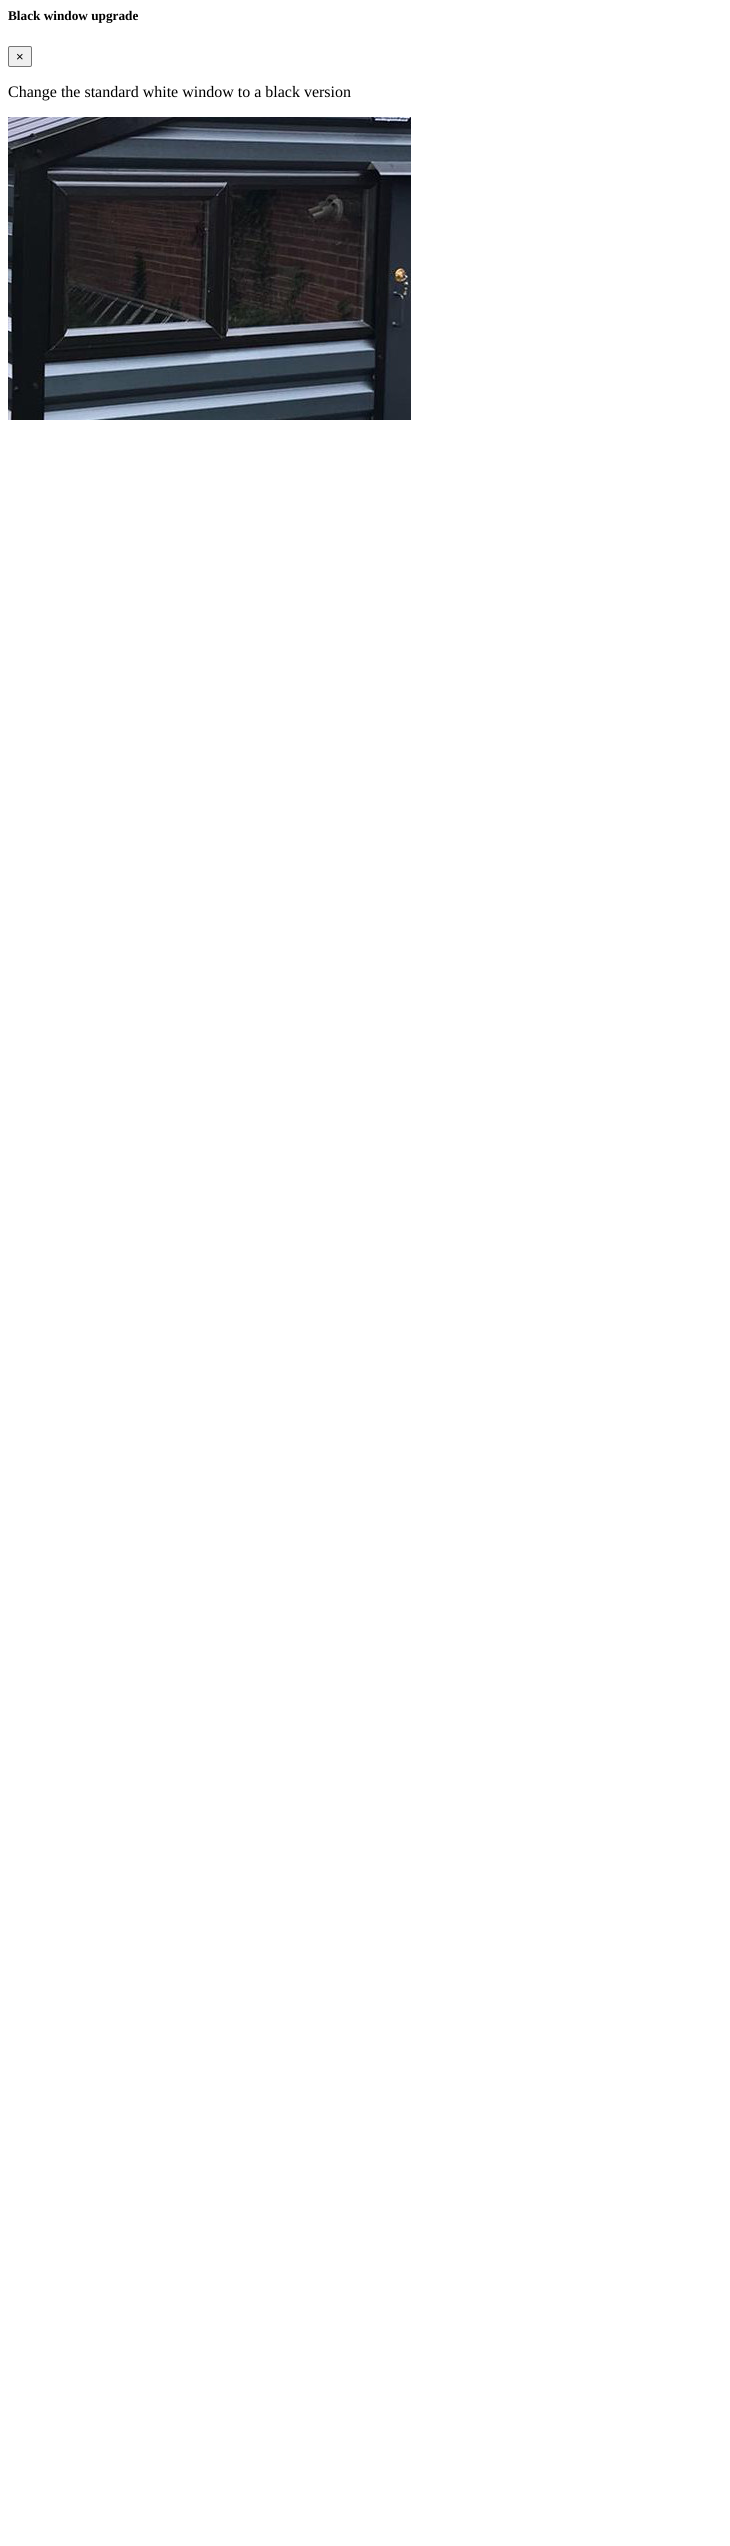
#include <cairo.h>
#include <math.h>
#include <stddef.h>


static void set_color(cairo_t *cr, unsigned color) {
    cairo_set_source_rgb(cr, (color >> 16) / 255.0, (color >> 8 & 255) / 255.0, (color & 255) / 255.0);
}

static void draw_text(cairo_t *cr, double x, double y, const char *s, const char *family, double size, int italic, int bold, unsigned color) {
    cairo_select_font_face(cr, family, italic ? CAIRO_FONT_SLANT_ITALIC : CAIRO_FONT_SLANT_NORMAL,
        bold ? CAIRO_FONT_WEIGHT_BOLD : CAIRO_FONT_WEIGHT_NORMAL);
    cairo_set_font_size(cr, size);
    set_color(cr, color);
    cairo_move_to(cr, x, y);
    cairo_show_text(cr, s);
}

static void rounded_rect(cairo_t *cr, double x, double y, double w, double h, double r) {
    cairo_new_sub_path(cr);
    cairo_arc(cr, x + w - r, y + h - r, r, 0, M_PI / 2);
    cairo_arc(cr, x + r, y + h - r, r, M_PI / 2, M_PI);
    cairo_arc(cr, x + r, y + r, r, M_PI, 1.5 * M_PI);
    cairo_arc(cr, x + w - r, y + r, r, 1.5 * M_PI, 2 * M_PI);
    cairo_close_path(cr);
}

static void draw_image(cairo_t *cr, const char *path, double x, double y, double w, double h) {
    cairo_surface_t *image = cairo_image_surface_create_from_png(path);
    cairo_save(cr);
    cairo_set_source_surface(cr, image, x, y);
    cairo_rectangle(cr, x, y, w, h);
    cairo_fill(cr);
    cairo_restore(cr);
    cairo_surface_destroy(image);
}

int main(void) {
    cairo_surface_t *surface = cairo_image_surface_create(CAIRO_FORMAT_RGB24, 730, 2546);
    cairo_t *cr = cairo_create(surface);
    cairo_font_options_t *options = cairo_font_options_create();
    cairo_font_options_set_hint_metrics(options, CAIRO_HINT_METRICS_OFF);
    cairo_font_options_set_hint_style(options, CAIRO_HINT_STYLE_NONE);
    cairo_set_font_options(cr, options);
    cairo_set_miter_limit(cr, 4);
    set_color(cr, 0xFFFFFF);
    cairo_paint(cr);
    draw_text(cr, 8, 20, "Black window upgrade", "Liberation Serif", 13.25, 0, 1, 0x000000);
    set_color(cr, 0xEFEFEF);
    rounded_rect(cr, 8.5, 46.5, 23, 20, 1.5);
    cairo_fill_preserve(cr);
    set_color(cr, 0x767676);
    cairo_set_line_width(cr, 1);
    cairo_stroke(cr);
    draw_text(cr, 16, 61, "×", "Liberation Sans", 13, 0, 0, 0x000000);
    draw_text(cr, 8, 97, "Change the standard white window to a black version", "Liberation Serif", 16, 0, 0, 0x000000);
    draw_image(cr, "assets/img1.png", 8, 117, 403, 303);
    cairo_surface_write_to_png(surface, "output.png");
    cairo_font_options_destroy(options);
    cairo_destroy(cr);
    cairo_surface_destroy(surface);
    return 0;
}
